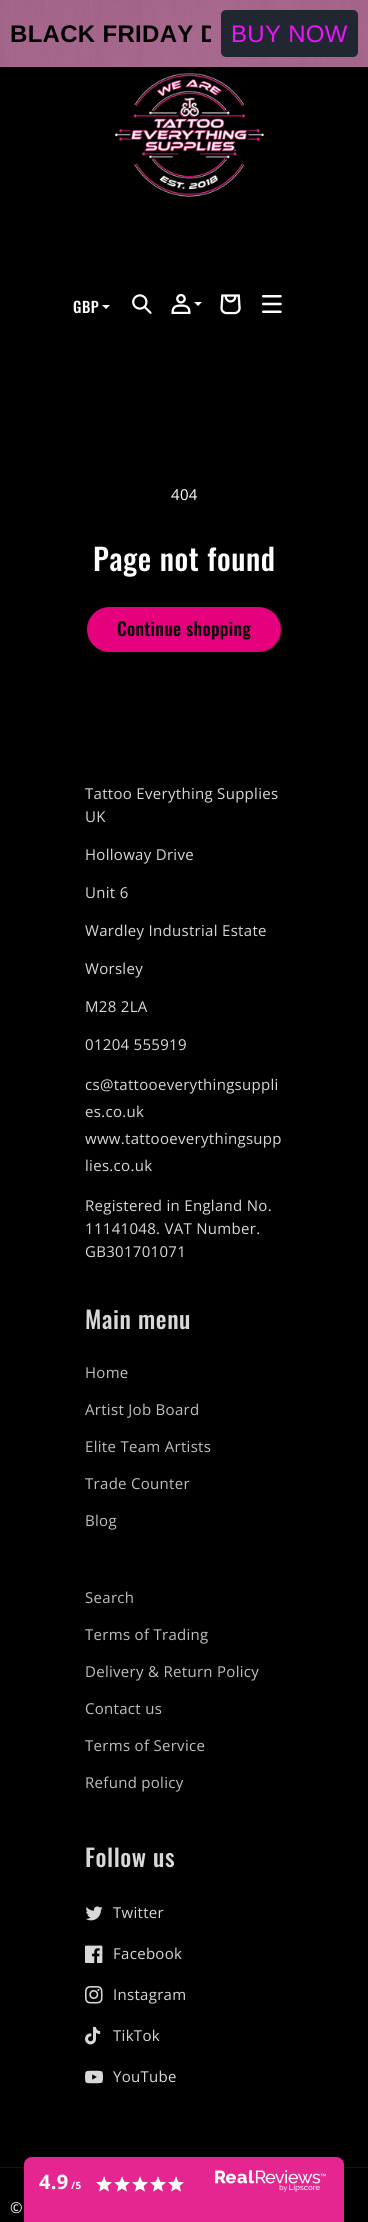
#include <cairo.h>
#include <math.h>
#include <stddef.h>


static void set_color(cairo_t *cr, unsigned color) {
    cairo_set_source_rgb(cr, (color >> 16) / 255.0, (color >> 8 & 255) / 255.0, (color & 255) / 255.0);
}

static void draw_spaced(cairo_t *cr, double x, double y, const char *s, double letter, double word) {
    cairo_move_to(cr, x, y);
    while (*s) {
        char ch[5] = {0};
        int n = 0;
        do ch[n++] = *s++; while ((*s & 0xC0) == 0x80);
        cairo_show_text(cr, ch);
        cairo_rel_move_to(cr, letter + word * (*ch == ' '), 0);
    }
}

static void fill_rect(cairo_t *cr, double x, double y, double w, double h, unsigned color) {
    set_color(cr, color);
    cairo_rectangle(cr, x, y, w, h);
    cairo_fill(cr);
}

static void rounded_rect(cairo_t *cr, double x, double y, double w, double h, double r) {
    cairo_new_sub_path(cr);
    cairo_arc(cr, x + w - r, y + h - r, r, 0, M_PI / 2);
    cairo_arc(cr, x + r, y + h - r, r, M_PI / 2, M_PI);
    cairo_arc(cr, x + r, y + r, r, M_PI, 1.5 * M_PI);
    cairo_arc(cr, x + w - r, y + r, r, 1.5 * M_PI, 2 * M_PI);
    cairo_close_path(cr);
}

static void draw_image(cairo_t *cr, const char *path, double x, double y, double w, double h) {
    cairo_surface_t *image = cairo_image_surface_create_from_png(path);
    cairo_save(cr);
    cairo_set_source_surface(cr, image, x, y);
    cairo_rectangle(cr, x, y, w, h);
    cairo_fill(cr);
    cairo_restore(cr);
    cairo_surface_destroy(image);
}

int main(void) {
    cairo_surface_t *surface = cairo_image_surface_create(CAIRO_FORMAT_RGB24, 368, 2222);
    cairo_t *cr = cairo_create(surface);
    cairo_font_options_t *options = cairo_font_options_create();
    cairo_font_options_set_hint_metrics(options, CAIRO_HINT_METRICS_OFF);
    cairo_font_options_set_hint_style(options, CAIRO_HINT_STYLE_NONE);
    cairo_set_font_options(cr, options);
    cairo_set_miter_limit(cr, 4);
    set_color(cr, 0x000000);
    cairo_paint(cr);
    fill_rect(cr, 0, 0, 368, 67, 0x730045);
    draw_image(cr, "assets/img1.png", 0, 0, 368, 67);
    cairo_save(cr);
    cairo_rectangle(cr, 10, 18, 201, 31);
    cairo_clip(cr);
    cairo_select_font_face(cr, "Liberation Sans", CAIRO_FONT_SLANT_NORMAL, CAIRO_FONT_WEIGHT_BOLD);
    cairo_set_font_size(cr, 24);
    set_color(cr, 0x000000);
    draw_spaced(cr, 10, 42, "BLACK FRIDAY D", 0.3, 0);
    cairo_restore(cr);
    set_color(cr, 0x212730);
    rounded_rect(cr, 221, 10, 137, 47, 5);
    cairo_fill(cr);
    cairo_select_font_face(cr, "Liberation Sans", CAIRO_FONT_SLANT_NORMAL, CAIRO_FONT_WEIGHT_NORMAL);
    cairo_set_font_size(cr, 24);
    set_color(cr, 0xEC14F8);
    draw_spaced(cr, 231, 42, "BUY NOW", 0.3, 0);
    draw_image(cr, "assets/img2.png", 114, 73, 151, 124);
    cairo_select_font_face(cr, "Oswald Medium", CAIRO_FONT_SLANT_NORMAL, CAIRO_FONT_WEIGHT_NORMAL);
    cairo_set_font_size(cr, 15);
    set_color(cr, 0xFFFFFF);
    draw_spaced(cr, 73, 313, "GBP", 0.5, 0);
    cairo_new_path(cr);
    cairo_move_to(cr, 102, 305);
    cairo_line_to(cr, 110, 305);
    cairo_line_to(cr, 106, 309);
    cairo_close_path(cr);
    cairo_fill(cr);
    draw_image(cr, "assets/img3.png", 132, 294, 20, 20);
    draw_image(cr, "assets/img4.png", 171, 294, 20, 20);
    cairo_new_path(cr);
    cairo_move_to(cr, 194, 302);
    cairo_line_to(cr, 202, 302);
    cairo_line_to(cr, 198, 306);
    cairo_close_path(cr);
    cairo_fill(cr);
    draw_image(cr, "assets/img5.png", 220, 294, 21, 21);
    draw_image(cr, "assets/img6.png", 262, 295, 20, 18);
    cairo_select_font_face(cr, "Open Sans", CAIRO_FONT_SLANT_NORMAL, CAIRO_FONT_WEIGHT_NORMAL);
    draw_spaced(cr, 171, 500, "404", 0.3, 0);
    cairo_select_font_face(cr, "Oswald Medium", CAIRO_FONT_SLANT_NORMAL, CAIRO_FONT_WEIGHT_NORMAL);
    cairo_set_font_size(cr, 30);
    draw_spaced(cr, 93, 571, "Page not found", 0.6, 0);
    set_color(cr, 0xE5007D);
    rounded_rect(cr, 87, 607, 194, 45, 22.5);
    cairo_fill(cr);
    cairo_set_font_size(cr, 18);
    set_color(cr, 0x000000);
    draw_spaced(cr, 117, 636, "Continue shopping", 0.3, 0);
    cairo_select_font_face(cr, "Open Sans", CAIRO_FONT_SLANT_NORMAL, CAIRO_FONT_WEIGHT_NORMAL);
    cairo_set_font_size(cr, 15);
    set_color(cr, 0xD8D8D8);
    draw_spaced(cr, 85, 799, "Tattoo Everything Supplies", 0.3, 0);
    draw_spaced(cr, 85, 822, "UK", 0.3, 0);
    draw_spaced(cr, 85, 860, "Holloway Drive", 0.3, 0);
    draw_spaced(cr, 85, 898, "Unit 6", 0.3, 0);
    draw_spaced(cr, 85, 936, "Wardley Industrial Estate", 0.3, 0);
    draw_spaced(cr, 85, 974, "Worsley", 0.3, 0);
    draw_spaced(cr, 85, 1012, "M28 2LA", 0.3, 0);
    draw_spaced(cr, 85, 1050, "01204 555919", 0.3, 0);
    draw_spaced(cr, 85, 1090, "cs@tattooeverythingsuppli", 0.3, 0);
    draw_spaced(cr, 85, 1117, "es.co.uk", 0.3, 0);
    draw_spaced(cr, 85, 1144, "www.tattooeverythingsupp", 0.3, 0);
    draw_spaced(cr, 85, 1171, "lies.co.uk", 0.3, 0);
    draw_spaced(cr, 85, 1211, "Registered in England No.", 0.3, 0);
    draw_spaced(cr, 85, 1234, "11141048. VAT Number.", 0.3, 0);
    draw_spaced(cr, 85, 1257, "GB301701071", 0.3, 0);
    cairo_select_font_face(cr, "Oswald Medium", CAIRO_FONT_SLANT_NORMAL, CAIRO_FONT_WEIGHT_NORMAL);
    cairo_set_font_size(cr, 24);
    draw_spaced(cr, 85, 1329, "Main menu", 0.6, 0);
    cairo_select_font_face(cr, "Open Sans", CAIRO_FONT_SLANT_NORMAL, CAIRO_FONT_WEIGHT_NORMAL);
    cairo_set_font_size(cr, 15);
    set_color(cr, 0xBFBFBF);
    draw_spaced(cr, 85, 1378, "Home", 0.3, 0);
    draw_spaced(cr, 85, 1415, "Artist Job Board", 0.3, 0);
    draw_spaced(cr, 85, 1452, "Elite Team Artists", 0.3, 0);
    draw_spaced(cr, 85, 1489, "Trade Counter", 0.3, 0);
    draw_spaced(cr, 85, 1526, "Blog", 0.3, 0);
    draw_spaced(cr, 85, 1603, "Search", 0.3, 0);
    draw_spaced(cr, 85, 1640, "Terms of Trading", 0.3, 0);
    draw_spaced(cr, 85, 1677, "Delivery & Return Policy", 0.3, 0);
    draw_spaced(cr, 85, 1714, "Contact us", 0.3, 0);
    draw_spaced(cr, 85, 1751, "Terms of Service", 0.3, 0);
    draw_spaced(cr, 85, 1788, "Refund policy", 0.3, 0);
    cairo_select_font_face(cr, "Oswald Medium", CAIRO_FONT_SLANT_NORMAL, CAIRO_FONT_WEIGHT_NORMAL);
    cairo_set_font_size(cr, 24);
    set_color(cr, 0xD8D8D8);
    draw_spaced(cr, 85, 1867, "Follow us", 0.6, 0);
    draw_image(cr, "assets/img7.png", 85, 1906, 18, 15);
    cairo_select_font_face(cr, "Open Sans", CAIRO_FONT_SLANT_NORMAL, CAIRO_FONT_WEIGHT_NORMAL);
    cairo_set_font_size(cr, 15);
    draw_spaced(cr, 113, 1918, "Twitter", 0.3, 0);
    draw_image(cr, "assets/img8.png", 85, 1945, 18, 18);
    draw_spaced(cr, 113, 1959, "Facebook", 0.3, 0);
    draw_image(cr, "assets/img9.png", 85, 1986, 18, 18);
    draw_spaced(cr, 113, 2000, "Instagram", 0.3, 0);
    draw_image(cr, "assets/img10.png", 85, 2027, 16, 18);
    draw_spaced(cr, 113, 2041, "TikTok", 0.3, 0);
    draw_image(cr, "assets/img11.png", 85, 2070, 18, 14);
    draw_spaced(cr, 113, 2082, "YouTube", 0.3, 0);
    fill_rect(cr, 0, 2167, 368, 1, 0x141414);
    set_color(cr, 0xFFFFFF);
    draw_spaced(cr, 10, 2213, "©", 1, 0);
    set_color(cr, 0xE52691);
    cairo_new_path(cr);
    cairo_move_to(cr, 32, 2157);
    cairo_line_to(cr, 336, 2157);
    cairo_curve_to(cr, 340.5, 2157, 344, 2160.5, 344, 2165);
    cairo_line_to(cr, 344, 2222);
    cairo_line_to(cr, 24, 2222);
    cairo_line_to(cr, 24, 2165);
    cairo_curve_to(cr, 24, 2160.5, 27.5, 2157, 32, 2157);
    cairo_close_path(cr);
    cairo_fill(cr);
    cairo_select_font_face(cr, "Open Sans", CAIRO_FONT_SLANT_NORMAL, CAIRO_FONT_WEIGHT_BOLD);
    cairo_set_font_size(cr, 20);
    set_color(cr, 0xFFFFFF);
    draw_spaced(cr, 39, 2189, "4.9", 0.3, 0);
    cairo_set_font_size(cr, 10);
    draw_spaced(cr, 71, 2189, "/5", 0.3, 0);
    draw_image(cr, "assets/img12.png", 96, 2176, 16, 16);
    draw_image(cr, "assets/img12.png", 114, 2176, 16, 16);
    draw_image(cr, "assets/img12.png", 132, 2176, 16, 16);
    draw_image(cr, "assets/img12.png", 150, 2176, 16, 16);
    draw_image(cr, "assets/img12.png", 168, 2176, 16, 16);
    draw_image(cr, "assets/img13.png", 215, 2170, 111, 22);
    cairo_surface_write_to_png(surface, "output.png");
    cairo_font_options_destroy(options);
    cairo_destroy(cr);
    cairo_surface_destroy(surface);
    return 0;
}
